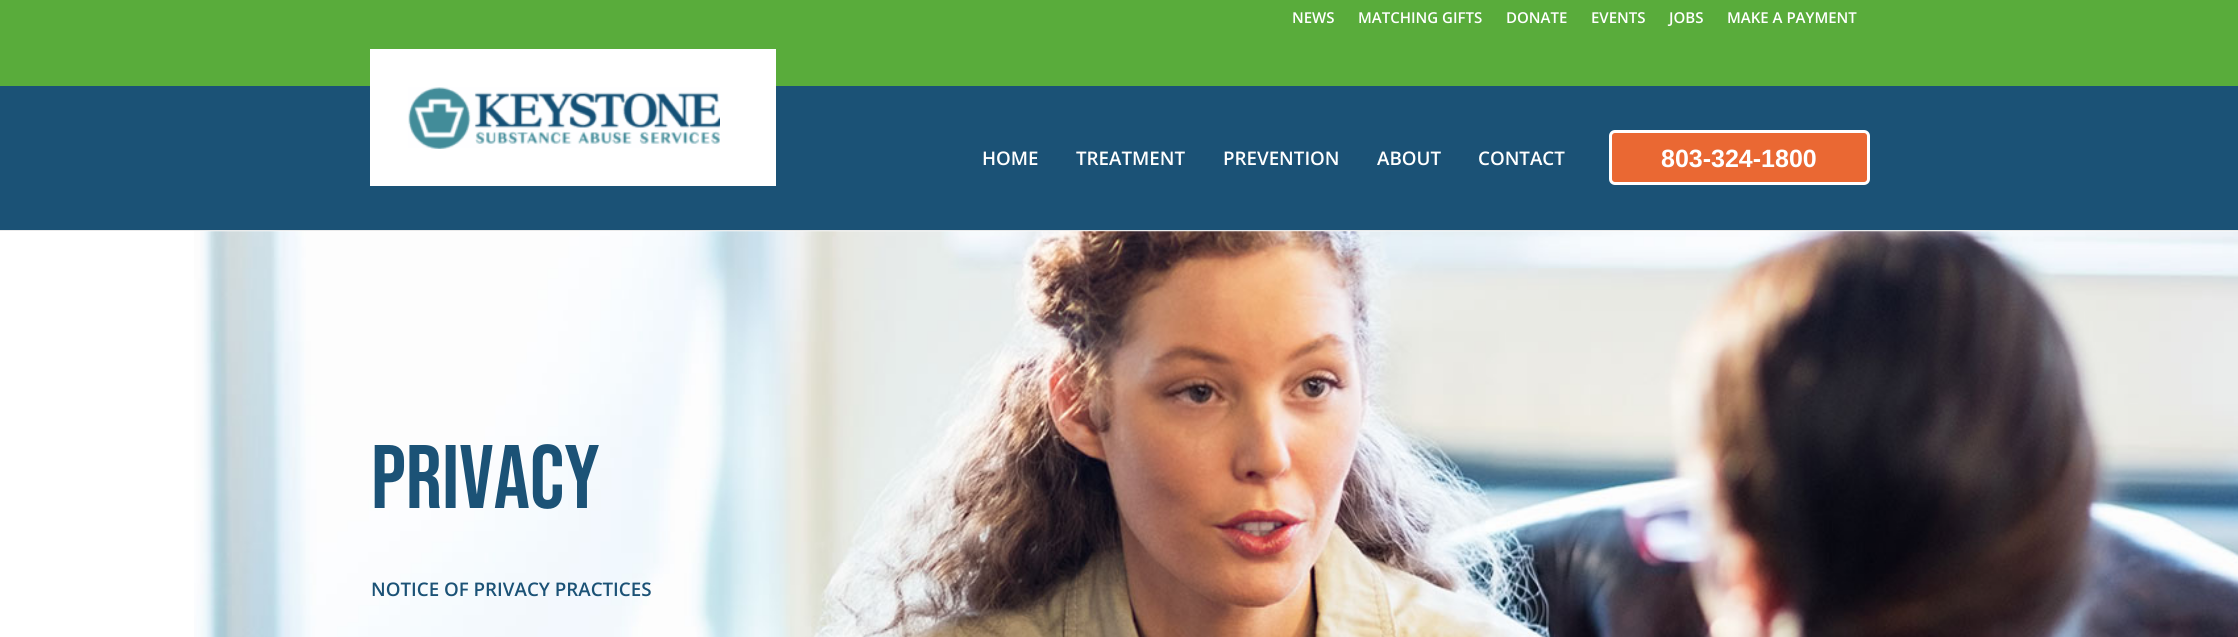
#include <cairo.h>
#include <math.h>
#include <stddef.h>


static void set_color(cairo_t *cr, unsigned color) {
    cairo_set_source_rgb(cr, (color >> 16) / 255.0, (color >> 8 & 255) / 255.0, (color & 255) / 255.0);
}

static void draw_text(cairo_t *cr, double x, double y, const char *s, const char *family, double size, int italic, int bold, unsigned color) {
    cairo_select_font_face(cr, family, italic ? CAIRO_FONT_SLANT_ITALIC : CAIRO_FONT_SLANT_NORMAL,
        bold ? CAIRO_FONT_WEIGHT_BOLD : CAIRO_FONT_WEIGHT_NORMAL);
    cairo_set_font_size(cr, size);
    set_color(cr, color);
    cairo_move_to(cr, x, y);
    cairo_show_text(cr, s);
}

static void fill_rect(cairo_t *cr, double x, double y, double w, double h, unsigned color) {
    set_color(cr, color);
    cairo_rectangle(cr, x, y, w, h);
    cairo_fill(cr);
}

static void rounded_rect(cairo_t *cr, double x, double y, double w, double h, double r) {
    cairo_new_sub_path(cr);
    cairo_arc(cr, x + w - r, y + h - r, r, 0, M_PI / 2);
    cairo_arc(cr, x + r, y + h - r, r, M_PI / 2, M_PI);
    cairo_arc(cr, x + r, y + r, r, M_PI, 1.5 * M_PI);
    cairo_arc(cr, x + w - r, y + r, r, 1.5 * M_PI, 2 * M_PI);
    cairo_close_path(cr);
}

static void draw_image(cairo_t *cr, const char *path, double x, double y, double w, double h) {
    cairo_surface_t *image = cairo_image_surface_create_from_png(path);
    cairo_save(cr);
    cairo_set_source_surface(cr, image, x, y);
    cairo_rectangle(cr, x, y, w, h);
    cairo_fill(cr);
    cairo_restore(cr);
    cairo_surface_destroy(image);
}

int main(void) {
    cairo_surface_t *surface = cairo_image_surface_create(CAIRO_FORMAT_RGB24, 2238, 637);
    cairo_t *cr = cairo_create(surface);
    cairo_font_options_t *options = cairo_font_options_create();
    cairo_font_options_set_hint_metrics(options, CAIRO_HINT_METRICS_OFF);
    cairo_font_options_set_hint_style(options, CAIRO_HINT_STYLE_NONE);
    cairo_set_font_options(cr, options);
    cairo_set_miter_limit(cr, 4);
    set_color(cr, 0xFFFFFF);
    cairo_paint(cr);
    fill_rect(cr, 0, 0, 2238, 86, 0x59AC3B);
    draw_text(cr, 1292, 23, "NEWS", "Open Sans SemiBold", 15, 0, 0, 0xFFFFFF);
    draw_text(cr, 1358, 23, "MATCHING GIFTS", "Open Sans SemiBold", 15, 0, 0, 0xFFFFFF);
    draw_text(cr, 1506, 23, "DONATE", "Open Sans SemiBold", 15, 0, 0, 0xFFFFFF);
    draw_text(cr, 1591, 23, "EVENTS", "Open Sans SemiBold", 15, 0, 0, 0xFFFFFF);
    draw_text(cr, 1669, 23, "JOBS", "Open Sans SemiBold", 15, 0, 0, 0xFFFFFF);
    draw_text(cr, 1727, 23, "MAKE A PAYMENT", "Open Sans SemiBold", 15, 0, 0, 0xFFFFFF);
    fill_rect(cr, 0, 86, 2238, 144, 0x1B5276);
    fill_rect(cr, 0, 230, 2238, 1, 0xEAEAEA);
    fill_rect(cr, 370, 49, 406, 137, 0xFFFFFF);
    draw_image(cr, "assets/img1.png", 408, 87, 312, 62);
    draw_text(cr, 982, 165, "HOME", "Open Sans SemiBold", 18.75, 0, 0, 0xFFFFFF);
    draw_text(cr, 1076, 165, "TREATMENT", "Open Sans SemiBold", 18.75, 0, 0, 0xFFFFFF);
    draw_text(cr, 1223, 165, "PREVENTION", "Open Sans SemiBold", 18.75, 0, 0, 0xFFFFFF);
    draw_text(cr, 1377, 165, "ABOUT", "Open Sans SemiBold", 18.75, 0, 0, 0xFFFFFF);
    draw_text(cr, 1478, 165, "CONTACT", "Open Sans SemiBold", 18.75, 0, 0, 0xFFFFFF);
    set_color(cr, 0xEA6833);
    rounded_rect(cr, 1610.5, 131.5, 258, 52, 4.5);
    cairo_fill_preserve(cr);
    set_color(cr, 0xFFFFFF);
    cairo_set_line_width(cr, 3);
    cairo_stroke(cr);
    draw_text(cr, 1661, 167, "803-324-1800", "Liberation Sans", 25, 0, 1, 0xFFFFFF);
    draw_image(cr, "assets/img2.png", 194, 231, 2044, 406);
    draw_text(cr, 371, 508, "Privacy", "Bebas Neue", 90, 0, 0, 0x1B5276);
    draw_text(cr, 371, 596, "NOTICE OF PRIVACY PRACTICES", "Open Sans SemiBold", 18.75, 0, 0, 0x1B5276);
    cairo_surface_write_to_png(surface, "output.png");
    cairo_font_options_destroy(options);
    cairo_destroy(cr);
    cairo_surface_destroy(surface);
    return 0;
}
